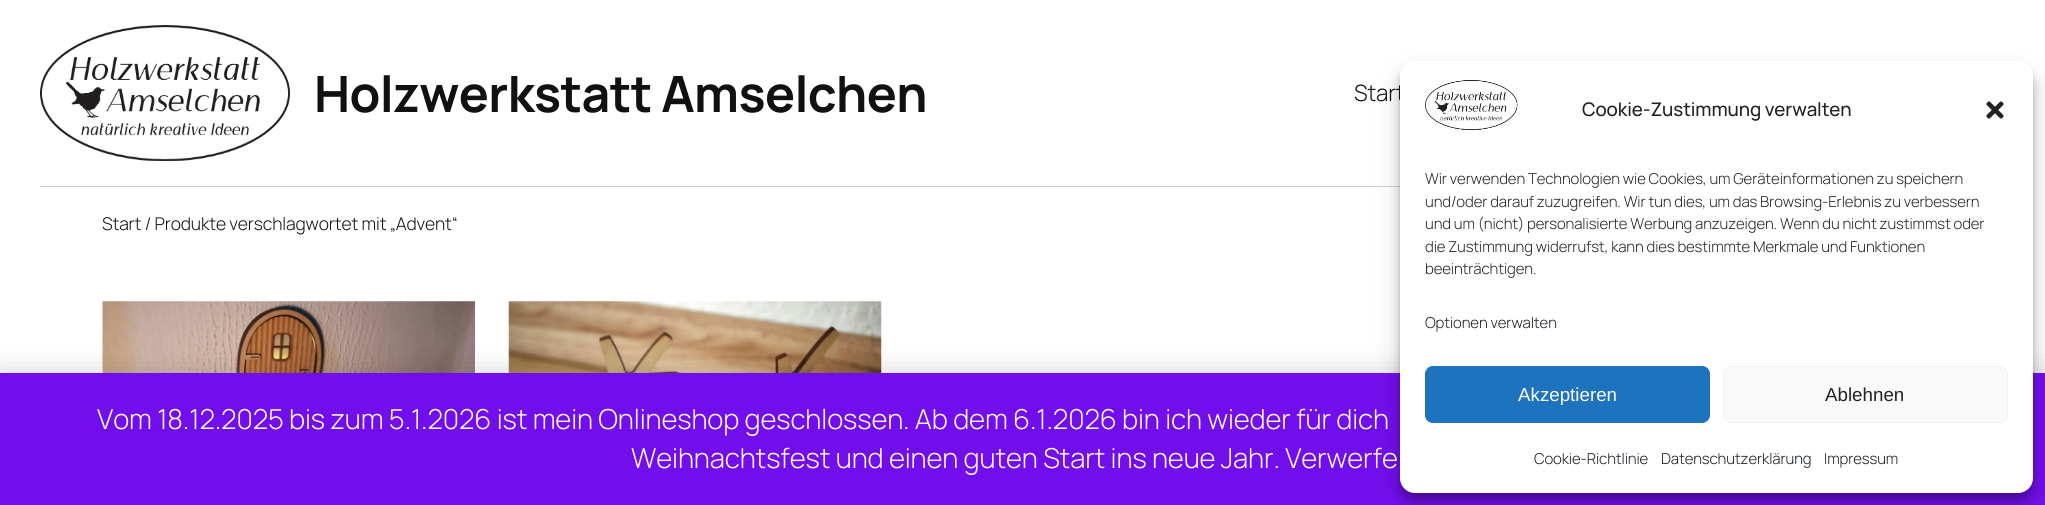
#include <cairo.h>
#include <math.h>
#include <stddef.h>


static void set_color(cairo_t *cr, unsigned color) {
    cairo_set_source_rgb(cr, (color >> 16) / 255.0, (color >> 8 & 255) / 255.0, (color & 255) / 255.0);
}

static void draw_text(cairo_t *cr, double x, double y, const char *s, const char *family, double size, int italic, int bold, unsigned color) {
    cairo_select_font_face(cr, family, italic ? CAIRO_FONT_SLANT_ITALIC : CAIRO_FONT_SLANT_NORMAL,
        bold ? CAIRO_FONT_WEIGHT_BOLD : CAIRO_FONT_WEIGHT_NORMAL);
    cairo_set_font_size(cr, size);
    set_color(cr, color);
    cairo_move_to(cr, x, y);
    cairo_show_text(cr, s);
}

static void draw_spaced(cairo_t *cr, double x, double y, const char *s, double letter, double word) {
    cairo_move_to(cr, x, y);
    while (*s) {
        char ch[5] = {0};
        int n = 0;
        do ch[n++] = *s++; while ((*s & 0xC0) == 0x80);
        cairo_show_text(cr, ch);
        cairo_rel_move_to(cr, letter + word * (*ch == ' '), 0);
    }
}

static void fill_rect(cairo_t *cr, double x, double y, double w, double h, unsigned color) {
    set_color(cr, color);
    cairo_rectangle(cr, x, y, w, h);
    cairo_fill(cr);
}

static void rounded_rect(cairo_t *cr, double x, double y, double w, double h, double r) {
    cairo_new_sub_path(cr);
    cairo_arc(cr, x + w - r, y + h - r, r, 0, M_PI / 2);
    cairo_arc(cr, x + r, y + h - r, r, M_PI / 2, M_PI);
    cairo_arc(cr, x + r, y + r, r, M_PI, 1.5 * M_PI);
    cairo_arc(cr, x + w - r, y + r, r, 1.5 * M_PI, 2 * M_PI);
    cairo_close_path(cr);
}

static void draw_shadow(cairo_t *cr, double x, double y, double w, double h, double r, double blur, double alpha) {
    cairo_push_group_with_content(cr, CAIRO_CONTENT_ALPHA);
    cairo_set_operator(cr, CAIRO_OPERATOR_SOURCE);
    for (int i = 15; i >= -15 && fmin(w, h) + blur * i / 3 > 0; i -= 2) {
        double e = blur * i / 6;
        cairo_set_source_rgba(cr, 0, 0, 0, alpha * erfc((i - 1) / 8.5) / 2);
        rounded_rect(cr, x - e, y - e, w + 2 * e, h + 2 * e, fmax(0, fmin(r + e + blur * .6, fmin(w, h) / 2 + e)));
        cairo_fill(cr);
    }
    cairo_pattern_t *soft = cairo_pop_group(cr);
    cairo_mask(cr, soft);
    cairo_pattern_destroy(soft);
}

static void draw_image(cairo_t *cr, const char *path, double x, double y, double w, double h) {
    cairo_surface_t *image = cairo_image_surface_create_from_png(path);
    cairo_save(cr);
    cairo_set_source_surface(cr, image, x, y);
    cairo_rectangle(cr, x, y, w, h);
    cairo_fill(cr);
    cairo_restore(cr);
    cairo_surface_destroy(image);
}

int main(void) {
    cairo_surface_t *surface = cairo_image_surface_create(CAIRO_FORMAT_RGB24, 2045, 505);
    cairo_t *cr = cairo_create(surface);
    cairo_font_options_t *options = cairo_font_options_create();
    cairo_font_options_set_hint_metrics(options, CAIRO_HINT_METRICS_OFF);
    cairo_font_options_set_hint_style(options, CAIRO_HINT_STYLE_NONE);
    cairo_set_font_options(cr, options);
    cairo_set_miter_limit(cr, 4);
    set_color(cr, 0xFFFFFF);
    cairo_paint(cr);
    draw_image(cr, "assets/img1.png", 40, 25, 250, 136);
    cairo_select_font_face(cr, "Manrope", CAIRO_FONT_SLANT_NORMAL, CAIRO_FONT_WEIGHT_BOLD);
    cairo_set_font_size(cr, 50);
    set_color(cr, 0x111111);
    draw_spaced(cr, 314, 112, "Holzwerkstatt Amselchen", -0.6, 0);
    cairo_select_font_face(cr, "Manrope Light", CAIRO_FONT_SLANT_NORMAL, CAIRO_FONT_WEIGHT_NORMAL);
    cairo_set_font_size(cr, 22.5);
    draw_spaced(cr, 1354, 101, "Start", -0.12, 0);
    fill_rect(cr, 40, 186, 1360, 1, 0xCFCFCF);
    cairo_set_font_size(cr, 17.5);
    set_color(cr, 0x111111);
    draw_spaced(cr, 102, 230, "Start / Produkte verschlagwortet mit „Advent“", -0.12, 0);
    draw_image(cr, "assets/img2.png", 102, 301, 373, 72);
    draw_image(cr, "assets/img3.png", 508, 301, 374, 72);
    set_color(cr, 0x000000);
    draw_shadow(cr, 0, 374, 2045, 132, 0, 14, 0.2);
    fill_rect(cr, 0, 373, 2045, 132, 0x720EEC);
    set_color(cr, 0x000000);
    draw_shadow(cr, 1400, 69, 633, 431, 15, 4, 0.23);
    draw_shadow(cr, 1400, 74, 633, 431, 15, 12.5, 0.19);
    set_color(cr, 0xFFFFFF);
    rounded_rect(cr, 1400, 61, 633, 432, 15);
    cairo_fill(cr);
    draw_image(cr, "assets/img4.png", 1425, 80, 93, 50);
    cairo_select_font_face(cr, "Manrope Medium", CAIRO_FONT_SLANT_NORMAL, CAIRO_FONT_WEIGHT_NORMAL);
    cairo_set_font_size(cr, 18.75);
    set_color(cr, 0x222222);
    draw_spaced(cr, 1582, 116, "Cookie-Zustimmung verwalten", -0.12, 0);
    draw_image(cr, "assets/img5.png", 1986, 101, 18, 18);
    cairo_select_font_face(cr, "Manrope Light", CAIRO_FONT_SLANT_NORMAL, CAIRO_FONT_WEIGHT_NORMAL);
    cairo_set_font_size(cr, 15);
    draw_spaced(cr, 1425, 184, "Wir verwenden Technologien wie Cookies, um Geräteinformationen zu speichern", -0.12, 0);
    draw_spaced(cr, 1425, 207, "und/oder darauf zuzugreifen. Wir tun dies, um das Browsing-Erlebnis zu verbessern", -0.12, 0);
    draw_spaced(cr, 1425, 229, "und um (nicht) personalisierte Werbung anzuzeigen. Wenn du nicht zustimmst oder", -0.12, 0);
    draw_spaced(cr, 1425, 252, "die Zustimmung widerrufst, kann dies bestimmte Merkmale und Funktionen", -0.12, 0);
    draw_spaced(cr, 1425, 274, "beeinträchtigen.", -0.12, 0);
    set_color(cr, 0x191E23);
    draw_spaced(cr, 1425, 328, "Optionen verwalten", -0.12, 0);
    set_color(cr, 0x1E73BE);
    rounded_rect(cr, 1425.5, 366.5, 284, 56, 7.5);
    cairo_fill_preserve(cr);
    cairo_set_line_width(cr, 1);
    cairo_stroke(cr);
    draw_text(cr, 1518, 401, "Akzeptieren", "Liberation Sans", 18.75, 0, 0, 0xFCFBFE);
    set_color(cr, 0xF9F9F9);
    rounded_rect(cr, 1723.5, 366.5, 284, 56, 7.5);
    cairo_fill_preserve(cr);
    set_color(cr, 0xF2F2F2);
    cairo_stroke(cr);
    draw_text(cr, 1825, 401, "Ablehnen", "Liberation Sans", 18.75, 0, 0, 0x222222);
    cairo_select_font_face(cr, "Manrope Light", CAIRO_FONT_SLANT_NORMAL, CAIRO_FONT_WEIGHT_NORMAL);
    cairo_set_font_size(cr, 15);
    set_color(cr, 0x191E23);
    draw_spaced(cr, 1534, 464, "Cookie-Richtlinie", -0.12, 0);
    draw_spaced(cr, 1661, 464, "Datenschutzerklärung", -0.12, 0);
    draw_spaced(cr, 1824, 464, "Impressum", -0.12, 0);
    cairo_set_font_size(cr, 27.5);
    set_color(cr, 0xFCFBFE);
    draw_spaced(cr, 97, 429, "Vom 18.12.2025 bis zum 5.1.2026 ist mein Onlineshop geschlossen. Ab dem 6.1.2026 bin ich wieder für dich", -0.12, 0);
    draw_spaced(cr, 631, 468, "Weihnachtsfest und einen guten Start ins neue Jahr. Verwerfe", -0.12, 0);
    cairo_surface_write_to_png(surface, "output.png");
    cairo_font_options_destroy(options);
    cairo_destroy(cr);
    cairo_surface_destroy(surface);
    return 0;
}
